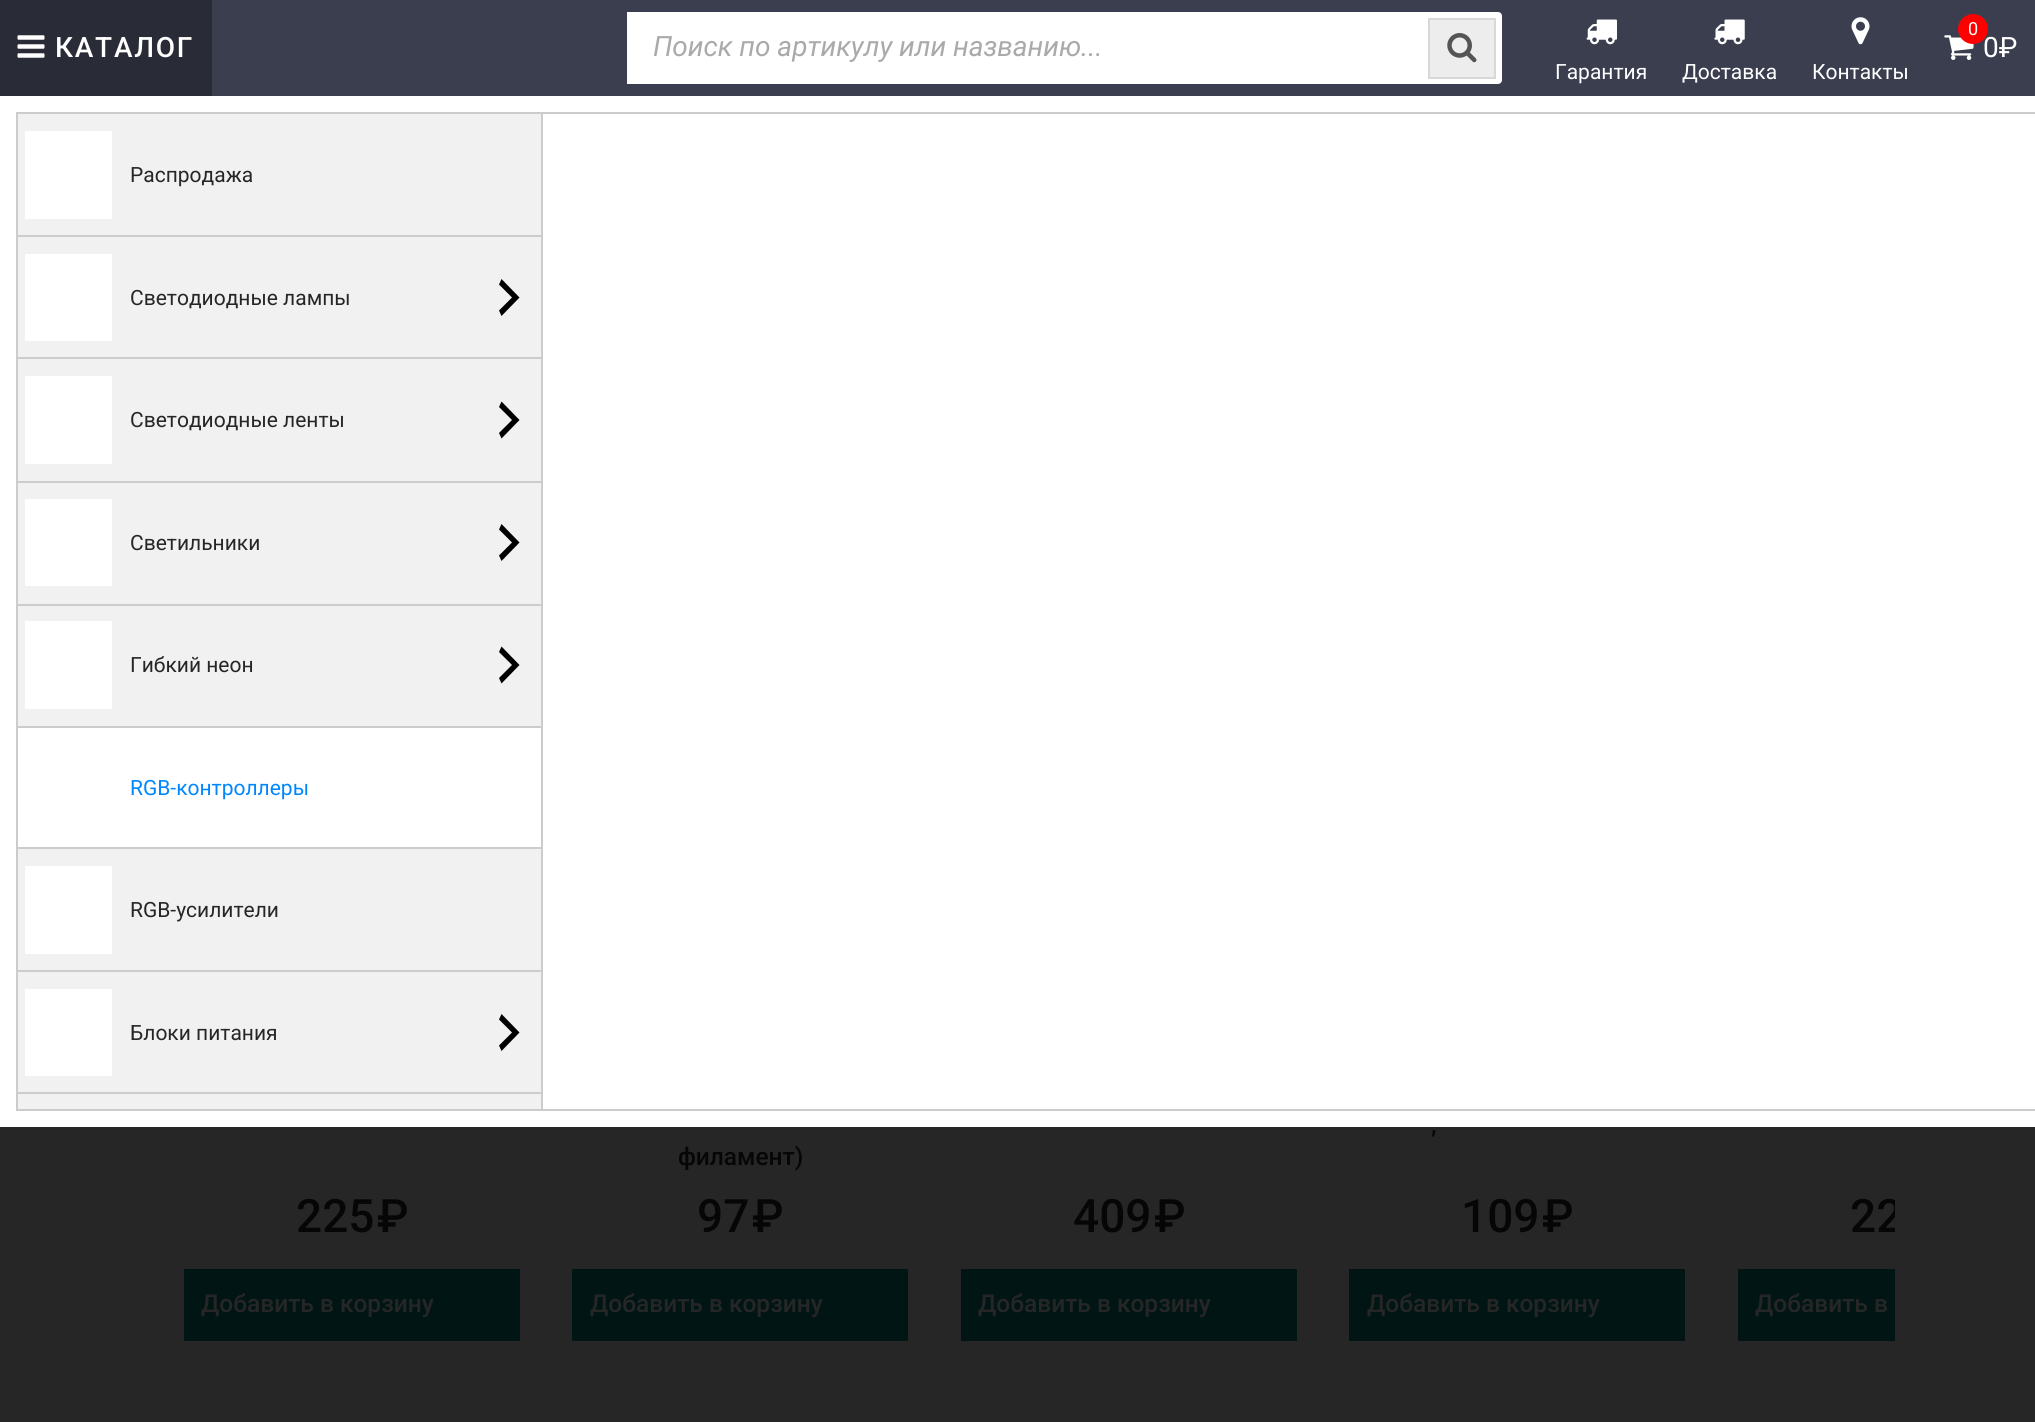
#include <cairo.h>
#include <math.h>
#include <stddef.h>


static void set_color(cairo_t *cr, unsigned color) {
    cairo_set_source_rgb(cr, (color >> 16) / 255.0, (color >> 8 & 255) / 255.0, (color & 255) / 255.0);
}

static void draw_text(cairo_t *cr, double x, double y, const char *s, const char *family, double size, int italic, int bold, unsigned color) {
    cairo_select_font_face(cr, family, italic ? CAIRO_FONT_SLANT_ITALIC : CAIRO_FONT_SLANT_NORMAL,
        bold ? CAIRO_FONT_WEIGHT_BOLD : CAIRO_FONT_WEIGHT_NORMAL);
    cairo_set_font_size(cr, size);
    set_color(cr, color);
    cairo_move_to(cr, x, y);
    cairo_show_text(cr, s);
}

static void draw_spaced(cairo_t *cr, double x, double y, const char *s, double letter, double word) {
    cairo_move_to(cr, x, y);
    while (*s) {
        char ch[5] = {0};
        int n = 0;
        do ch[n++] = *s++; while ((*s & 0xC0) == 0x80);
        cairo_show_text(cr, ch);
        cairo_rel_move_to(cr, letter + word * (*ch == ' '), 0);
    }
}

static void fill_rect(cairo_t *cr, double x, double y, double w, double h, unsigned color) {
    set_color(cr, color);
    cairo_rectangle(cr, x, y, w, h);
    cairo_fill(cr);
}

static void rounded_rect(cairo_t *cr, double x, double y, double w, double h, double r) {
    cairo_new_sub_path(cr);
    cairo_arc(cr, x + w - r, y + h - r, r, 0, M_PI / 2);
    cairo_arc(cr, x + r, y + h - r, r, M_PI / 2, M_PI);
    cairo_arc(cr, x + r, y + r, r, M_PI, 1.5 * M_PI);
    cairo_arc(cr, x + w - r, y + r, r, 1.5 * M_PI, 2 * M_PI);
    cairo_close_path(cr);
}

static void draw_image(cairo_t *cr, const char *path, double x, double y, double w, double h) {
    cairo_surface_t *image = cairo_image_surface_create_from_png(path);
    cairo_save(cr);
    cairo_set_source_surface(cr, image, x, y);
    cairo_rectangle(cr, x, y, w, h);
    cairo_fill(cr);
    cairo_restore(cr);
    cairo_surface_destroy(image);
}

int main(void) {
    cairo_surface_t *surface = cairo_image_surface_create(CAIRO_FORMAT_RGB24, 2035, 1422);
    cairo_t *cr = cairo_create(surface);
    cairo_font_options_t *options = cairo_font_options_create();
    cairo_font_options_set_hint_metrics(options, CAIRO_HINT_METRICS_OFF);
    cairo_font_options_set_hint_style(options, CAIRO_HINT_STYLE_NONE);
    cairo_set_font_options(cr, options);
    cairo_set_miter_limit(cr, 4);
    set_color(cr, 0x262626);
    cairo_paint(cr);
    fill_rect(cr, 212, 0, 1823, 96, 0x3B3E4F);
    fill_rect(cr, 0, 0, 212, 96, 0x292B37);
    draw_image(cr, "assets/img1.png", 17, 35, 28, 23);
    cairo_select_font_face(cr, "Roboto Medium", CAIRO_FONT_SLANT_NORMAL, CAIRO_FONT_WEIGHT_NORMAL);
    cairo_set_font_size(cr, 28);
    set_color(cr, 0xFFFFFF);
    draw_spaced(cr, 55, 57, "КАТАЛОГ", 1.75, 0);
    fill_rect(cr, 0, 96, 2035, 1031, 0xFFFFFF);
    fill_rect(cr, 18, 114, 523, 121, 0xF1F1F1);
    fill_rect(cr, 25, 131, 87, 88, 0xFFFFFF);
    fill_rect(cr, 18, 237, 523, 120, 0xF1F1F1);
    fill_rect(cr, 25, 254, 87, 87, 0xFFFFFF);
    set_color(cr, 0x000000);
    cairo_new_path(cr);
    cairo_move_to(cr, 499, 310.5);
    cairo_line_to(cr, 512, 297.5);
    cairo_line_to(cr, 499, 284.5);
    cairo_line_to(cr, 501.5, 279);
    cairo_line_to(cr, 519.5, 297.5);
    cairo_line_to(cr, 501.5, 316);
    cairo_close_path(cr);
    cairo_fill(cr);
    cairo_rectangle(cr, 17, 236, 526, 124);
    set_color(cr, 0xCCCCCC);
    cairo_stroke(cr);
    fill_rect(cr, 18, 606, 523, 120, 0xF1F1F1);
    fill_rect(cr, 25, 621, 87, 88, 0xFFFFFF);
    set_color(cr, 0x000000);
    cairo_new_path(cr);
    cairo_move_to(cr, 499, 678);
    cairo_line_to(cr, 512, 665);
    cairo_line_to(cr, 499, 652);
    cairo_line_to(cr, 501.5, 646.5);
    cairo_line_to(cr, 519.5, 665);
    cairo_line_to(cr, 501.5, 683.5);
    cairo_close_path(cr);
    cairo_fill(cr);
    cairo_rectangle(cr, 17, 603, 526, 124);
    set_color(cr, 0xCCCCCC);
    cairo_stroke(cr);
    fill_rect(cr, 18, 483, 523, 121, 0xF1F1F1);
    fill_rect(cr, 25, 499, 87, 87, 0xFFFFFF);
    set_color(cr, 0x000000);
    cairo_new_path(cr);
    cairo_move_to(cr, 499, 555.5);
    cairo_line_to(cr, 512, 542.5);
    cairo_line_to(cr, 499, 529.5);
    cairo_line_to(cr, 501.5, 524);
    cairo_line_to(cr, 519.5, 542.5);
    cairo_line_to(cr, 501.5, 561);
    cairo_close_path(cr);
    cairo_fill(cr);
    cairo_rectangle(cr, 17, 481, 526, 124);
    set_color(cr, 0xCCCCCC);
    cairo_stroke(cr);
    fill_rect(cr, 18, 359, 523, 122, 0xF1F1F1);
    fill_rect(cr, 25, 376, 87, 88, 0xFFFFFF);
    set_color(cr, 0x000000);
    cairo_new_path(cr);
    cairo_move_to(cr, 499, 433);
    cairo_line_to(cr, 512, 420);
    cairo_line_to(cr, 499, 407);
    cairo_line_to(cr, 501.5, 401.5);
    cairo_line_to(cr, 519.5, 420);
    cairo_line_to(cr, 501.5, 438.5);
    cairo_close_path(cr);
    cairo_fill(cr);
    cairo_rectangle(cr, 17, 358, 526, 124);
    set_color(cr, 0xCCCCCC);
    cairo_stroke(cr);
    fill_rect(cr, 18, 849, 523, 121, 0xF1F1F1);
    fill_rect(cr, 25, 866, 87, 88, 0xFFFFFF);
    cairo_rectangle(cr, 17, 848, 526, 124);
    set_color(cr, 0xCCCCCC);
    cairo_stroke(cr);
    fill_rect(cr, 18, 972, 523, 120, 0xF1F1F1);
    fill_rect(cr, 25, 989, 87, 87, 0xFFFFFF);
    set_color(cr, 0x000000);
    cairo_new_path(cr);
    cairo_move_to(cr, 499, 1045.5);
    cairo_line_to(cr, 512, 1032.5);
    cairo_line_to(cr, 499, 1019.5);
    cairo_line_to(cr, 501.5, 1014);
    cairo_line_to(cr, 519.5, 1032.5);
    cairo_line_to(cr, 501.5, 1051);
    cairo_close_path(cr);
    cairo_fill(cr);
    cairo_rectangle(cr, 17, 971, 526, 124);
    set_color(cr, 0xCCCCCC);
    cairo_stroke(cr);
    fill_rect(cr, 18, 1094, 523, 15, 0xF1F1F1);
    draw_text(cr, 296, 1232, "225", "Roboto Medium", 46, 0, 0, 0x060606);
    draw_text(cr, 377, 1232, "₽", "Roboto Medium", 46, 0, 0, 0x060606);
    cairo_save(cr);
    cairo_rectangle(cr, 18, 114, 525, 996);
    cairo_clip(cr);
    cairo_rectangle(cr, 17, 1093, 526, 124);
    set_color(cr, 0xCCCCCC);
    cairo_stroke(cr);
    cairo_restore(cr);
    cairo_rectangle(cr, 17, 113, 526, 997);
    set_color(cr, 0xCCCCCC);
    cairo_stroke(cr);
    draw_text(cr, 130, 182, "Распродажа", "Roboto", 21, 0, 0, 0x262626);
    draw_text(cr, 130, 305, "Светодиодные лампы", "Roboto", 21, 0, 0, 0x262626);
    draw_text(cr, 130, 427, "Светодиодные ленты", "Roboto", 21, 0, 0, 0x262626);
    draw_text(cr, 130, 550, "Светильники", "Roboto", 21, 0, 0, 0x262626);
    draw_text(cr, 130, 672, "Гибкий неон", "Roboto", 21, 0, 0, 0x262626);
    draw_text(cr, 130, 795, "RGB-контроллеры", "Roboto", 21, 0, 0, 0x0087FF);
    draw_text(cr, 130, 917, "RGB-усилители", "Roboto", 21, 0, 0, 0x262626);
    draw_text(cr, 130, 1040, "Блоки питания", "Roboto", 21, 0, 0, 0x262626);
    fill_rect(cr, 543, 114, 1, 995, 0xFFFFFF);
    cairo_rectangle(cr, 542, 113, 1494, 997);
    set_color(cr, 0xCCCCCC);
    cairo_stroke(cr);
    set_color(cr, 0xFFFFFF);
    rounded_rect(cr, 627, 12, 875, 72, 4);
    cairo_fill(cr);
    fill_rect(cr, 627, 12, 4, 72, 0xFFFFFF);
    draw_text(cr, 653, 56, "Поиск по артикулу или названию...", "Roboto", 28, 1, 0, 0xAAAAAA);
    fill_rect(cr, 1430, 20, 64, 57, 0xEDEDED);
    draw_image(cr, "assets/img2.png", 1447, 33, 30, 30);
    cairo_rectangle(cr, 1429, 19, 66, 59);
    set_color(cr, 0xD8D8D8);
    cairo_stroke(cr);
    draw_image(cr, "assets/img3.png", 1944, 35, 30, 25);
    draw_text(cr, 1983, 57, "0₽", "Roboto", 28, 0, 0, 0xFFFFFF);
    set_color(cr, 0xFF0000);
    cairo_new_path(cr);
    cairo_arc(cr, 1973, 29, 15, 0, 2 * M_PI);
    cairo_fill(cr);
    draw_text(cr, 1968, 35, "0", "Roboto", 18, 0, 0, 0xFFFFFF);
    draw_image(cr, "assets/img4.png", 1586, 19, 31, 26);
    draw_text(cr, 1555, 79, "Гарантия", "Roboto", 21, 0, 0, 0xFFFFFF);
    draw_image(cr, "assets/img5.png", 1714, 19, 31, 26);
    draw_text(cr, 1682, 79, "Доставка", "Roboto", 21, 0, 0, 0xFFFFFF);
    draw_image(cr, "assets/img6.png", 1851, 17, 19, 28);
    draw_text(cr, 1812, 79, "Контакты", "Roboto", 21, 0, 0, 0xFFFFFF);
    fill_rect(cr, 184, 1269, 336, 72, 0x011515);
    draw_text(cr, 201, 1312, "Добавить в корзину", "Roboto Medium", 24.5, 0, 0, 0x262626);
    draw_text(cr, 678, 1165, "филамент)", "Roboto Medium", 24.5, 0, 0, 0x060606);
    draw_text(cr, 697, 1232, "97", "Roboto Medium", 46, 0, 0, 0x060606);
    draw_text(cr, 752, 1232, "₽", "Roboto Medium", 46, 0, 0, 0x060606);
    fill_rect(cr, 572, 1269, 336, 72, 0x011515);
    draw_text(cr, 590, 1312, "Добавить в корзину", "Roboto Medium", 24.5, 0, 0, 0x262626);
    draw_text(cr, 1073, 1232, "409", "Roboto Medium", 46, 0, 0, 0x060606);
    draw_text(cr, 1154, 1232, "₽", "Roboto Medium", 46, 0, 0, 0x060606);
    fill_rect(cr, 961, 1269, 336, 72, 0x011515);
    draw_text(cr, 978, 1312, "Добавить в корзину", "Roboto Medium", 24.5, 0, 0, 0x262626);
    draw_text(cr, 1431, 1133, ",", "Roboto Medium", 24.5, 0, 0, 0x060606);
    draw_text(cr, 1461, 1232, "109", "Roboto Medium", 46, 0, 0, 0x060606);
    draw_text(cr, 1542, 1232, "₽", "Roboto Medium", 46, 0, 0, 0x060606);
    fill_rect(cr, 1349, 1269, 336, 72, 0x011515);
    draw_text(cr, 1367, 1312, "Добавить в корзину", "Roboto Medium", 24.5, 0, 0, 0x262626);
    cairo_save(cr);
    cairo_rectangle(cr, 140, 730, 1755, 672);
    cairo_clip(cr);
    draw_text(cr, 1850, 1232, "22", "Roboto Medium", 46, 0, 0, 0x060606);
    cairo_restore(cr);
    fill_rect(cr, 1738, 1269, 157, 72, 0x011515);
    draw_text(cr, 1755, 1312, "Добавить в", "Roboto Medium", 24.5, 0, 0, 0x262626);
    cairo_surface_write_to_png(surface, "output.png");
    cairo_font_options_destroy(options);
    cairo_destroy(cr);
    cairo_surface_destroy(surface);
    return 0;
}
